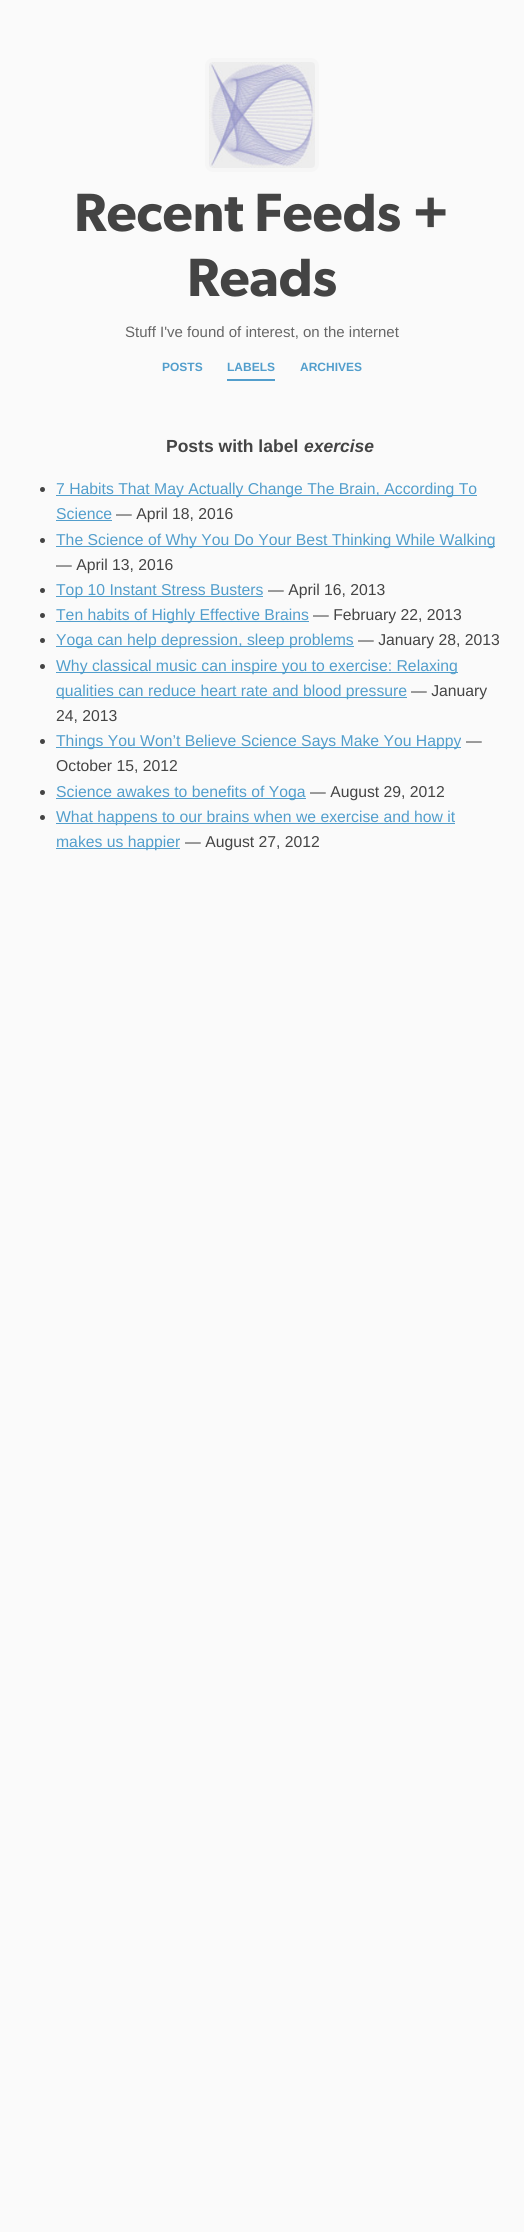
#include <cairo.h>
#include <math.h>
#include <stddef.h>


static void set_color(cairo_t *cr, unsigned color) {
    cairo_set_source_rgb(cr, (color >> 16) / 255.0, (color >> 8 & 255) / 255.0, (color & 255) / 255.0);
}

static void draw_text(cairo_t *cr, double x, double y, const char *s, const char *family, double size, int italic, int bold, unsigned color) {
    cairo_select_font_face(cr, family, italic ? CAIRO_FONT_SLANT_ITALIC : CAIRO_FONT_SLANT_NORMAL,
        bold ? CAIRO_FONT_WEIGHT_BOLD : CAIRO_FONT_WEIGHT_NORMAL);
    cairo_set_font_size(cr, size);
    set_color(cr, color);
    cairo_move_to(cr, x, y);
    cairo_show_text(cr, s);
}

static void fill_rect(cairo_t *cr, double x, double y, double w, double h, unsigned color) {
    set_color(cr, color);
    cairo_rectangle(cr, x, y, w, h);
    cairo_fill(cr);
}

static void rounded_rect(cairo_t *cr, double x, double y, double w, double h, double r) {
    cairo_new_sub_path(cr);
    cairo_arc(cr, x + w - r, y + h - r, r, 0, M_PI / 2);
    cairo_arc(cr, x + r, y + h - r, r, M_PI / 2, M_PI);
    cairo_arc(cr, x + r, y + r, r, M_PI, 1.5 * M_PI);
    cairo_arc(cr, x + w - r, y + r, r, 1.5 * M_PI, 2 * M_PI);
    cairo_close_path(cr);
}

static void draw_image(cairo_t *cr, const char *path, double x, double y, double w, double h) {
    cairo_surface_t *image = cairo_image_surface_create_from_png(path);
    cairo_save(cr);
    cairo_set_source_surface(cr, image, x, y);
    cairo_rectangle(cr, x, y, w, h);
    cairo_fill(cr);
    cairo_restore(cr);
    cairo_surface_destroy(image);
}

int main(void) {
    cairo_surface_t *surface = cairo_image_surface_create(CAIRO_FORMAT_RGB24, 524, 2232);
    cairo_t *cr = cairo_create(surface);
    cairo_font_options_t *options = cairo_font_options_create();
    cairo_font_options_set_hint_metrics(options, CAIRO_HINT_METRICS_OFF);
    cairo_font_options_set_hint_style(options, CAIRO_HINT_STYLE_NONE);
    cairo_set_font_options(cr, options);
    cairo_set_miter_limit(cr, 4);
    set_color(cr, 0xFAFAFA);
    cairo_paint(cr);
    rounded_rect(cr, 207, 60, 110, 110, 6);
    set_color(cr, 0xF6F6F6);
    cairo_set_line_width(cr, 4);
    cairo_stroke(cr);
    draw_image(cr, "assets/img1.png", 209, 62, 106, 106);
    draw_text(cr, 74, 231, "Recent Feeds +", "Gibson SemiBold", 54, 0, 0, 0x444444);
    draw_text(cr, 187, 296, "Reads", "Gibson SemiBold", 54, 0, 0, 0x444444);
    draw_text(cr, 125, 337, "Stuff I've found of interest, on the internet", "Liberation Sans", 15, 0, 0, 0x666666);
    draw_text(cr, 162, 371, "POSTS", "Liberation Sans", 12, 0, 1, 0x529ECC);
    draw_text(cr, 227, 371, "LABELS", "Liberation Sans", 12, 0, 1, 0x529ECC);
    fill_rect(cr, 227, 379, 48, 2, 0x529ECC);
    draw_text(cr, 300, 371, "ARCHIVES", "Liberation Sans", 12, 0, 1, 0x529ECC);
    draw_text(cr, 166, 452, "Posts with label", "Liberation Sans", 17.5, 0, 1, 0x444444);
    draw_text(cr, 304, 452, "exercise", "Liberation Sans", 17.5, 1, 1, 0x444444);
    cairo_new_path(cr);
    cairo_arc(cr, 42.5, 489.5, 2.5, 0, 2 * M_PI);
    cairo_fill(cr);
    fill_rect(cr, 56, 495, 421, 1, 0x529ECC);
    draw_text(cr, 56, 494, "7 Habits That May Actually Change The Brain, According To", "Liberation Sans", 15.75, 0, 0, 0x529ECC);
    draw_text(cr, 56, 519, "Science", "Liberation Sans", 15.75, 0, 0, 0x529ECC);
    fill_rect(cr, 56, 520, 56, 1, 0x529ECC);
    draw_text(cr, 116, 519, "— April 18, 2016", "Liberation Sans", 15.75, 0, 0, 0x444444);
    cairo_new_path(cr);
    cairo_arc(cr, 42.5, 540.5, 2.5, 0, 2 * M_PI);
    cairo_fill(cr);
    fill_rect(cr, 56, 546, 439, 1, 0x529ECC);
    draw_text(cr, 56, 545, "The Science of Why You Do Your Best Thinking While Walking", "Liberation Sans", 15.75, 0, 0, 0x529ECC);
    draw_text(cr, 56, 570, "— April 13, 2016", "Liberation Sans", 15.75, 0, 0, 0x444444);
    cairo_new_path(cr);
    cairo_arc(cr, 42.5, 590.5, 2.5, 0, 2 * M_PI);
    cairo_fill(cr);
    fill_rect(cr, 56, 596, 207, 1, 0x529ECC);
    draw_text(cr, 56, 595, "Top 10 Instant Stress Busters", "Liberation Sans", 15.75, 0, 0, 0x529ECC);
    draw_text(cr, 268, 595, "— April 16, 2013", "Liberation Sans", 15.75, 0, 0, 0x444444);
    cairo_new_path(cr);
    cairo_arc(cr, 42.5, 615.5, 2.5, 0, 2 * M_PI);
    cairo_fill(cr);
    fill_rect(cr, 56, 621, 253, 1, 0x529ECC);
    draw_text(cr, 56, 620, "Ten habits of Highly Effective Brains", "Liberation Sans", 15.75, 0, 0, 0x529ECC);
    draw_text(cr, 313, 620, "— February 22, 2013", "Liberation Sans", 15.75, 0, 0, 0x444444);
    cairo_new_path(cr);
    cairo_arc(cr, 42.5, 640.5, 2.5, 0, 2 * M_PI);
    cairo_fill(cr);
    fill_rect(cr, 56, 646, 298, 1, 0x529ECC);
    draw_text(cr, 56, 645, "Yoga can help depression, sleep problems", "Liberation Sans", 15.75, 0, 0, 0x529ECC);
    draw_text(cr, 358, 645, "— January 28, 2013", "Liberation Sans", 15.75, 0, 0, 0x444444);
    cairo_new_path(cr);
    cairo_arc(cr, 42.5, 666.5, 2.5, 0, 2 * M_PI);
    cairo_fill(cr);
    fill_rect(cr, 56, 672, 402, 1, 0x529ECC);
    draw_text(cr, 56, 671, "Why classical music can inspire you to exercise: Relaxing", "Liberation Sans", 15.75, 0, 0, 0x529ECC);
    fill_rect(cr, 56, 697, 351, 1, 0x529ECC);
    draw_text(cr, 56, 696, "qualities can reduce heart rate and blood pressure", "Liberation Sans", 15.75, 0, 0, 0x529ECC);
    draw_text(cr, 411, 696, "— January", "Liberation Sans", 15.75, 0, 0, 0x444444);
    draw_text(cr, 56, 721, "24, 2013", "Liberation Sans", 15.75, 0, 0, 0x444444);
    cairo_new_path(cr);
    cairo_arc(cr, 42.5, 741.5, 2.5, 0, 2 * M_PI);
    cairo_fill(cr);
    fill_rect(cr, 56, 747, 405, 1, 0x529ECC);
    draw_text(cr, 56, 746, "Things You Won’t Believe Science Says Make You Happy", "Liberation Sans", 15.75, 0, 0, 0x529ECC);
    draw_text(cr, 466, 746, "—", "Liberation Sans", 15.75, 0, 0, 0x444444);
    draw_text(cr, 56, 771, "October 15, 2012", "Liberation Sans", 15.75, 0, 0, 0x444444);
    cairo_new_path(cr);
    cairo_arc(cr, 42.5, 792.5, 2.5, 0, 2 * M_PI);
    cairo_fill(cr);
    fill_rect(cr, 56, 798, 250, 1, 0x529ECC);
    draw_text(cr, 56, 797, "Science awakes to benefits of Yoga", "Liberation Sans", 15.75, 0, 0, 0x529ECC);
    draw_text(cr, 310, 797, "— August 29, 2012", "Liberation Sans", 15.75, 0, 0, 0x444444);
    cairo_new_path(cr);
    cairo_arc(cr, 42.5, 817.5, 2.5, 0, 2 * M_PI);
    cairo_fill(cr);
    fill_rect(cr, 56, 823, 399, 1, 0x529ECC);
    draw_text(cr, 56, 822, "What happens to our brains when we exercise and how it", "Liberation Sans", 15.75, 0, 0, 0x529ECC);
    fill_rect(cr, 56, 848, 124, 1, 0x529ECC);
    draw_text(cr, 56, 847, "makes us happier", "Liberation Sans", 15.75, 0, 0, 0x529ECC);
    draw_text(cr, 185, 847, "— August 27, 2012", "Liberation Sans", 15.75, 0, 0, 0x444444);
    cairo_surface_write_to_png(surface, "output.png");
    cairo_font_options_destroy(options);
    cairo_destroy(cr);
    cairo_surface_destroy(surface);
    return 0;
}
